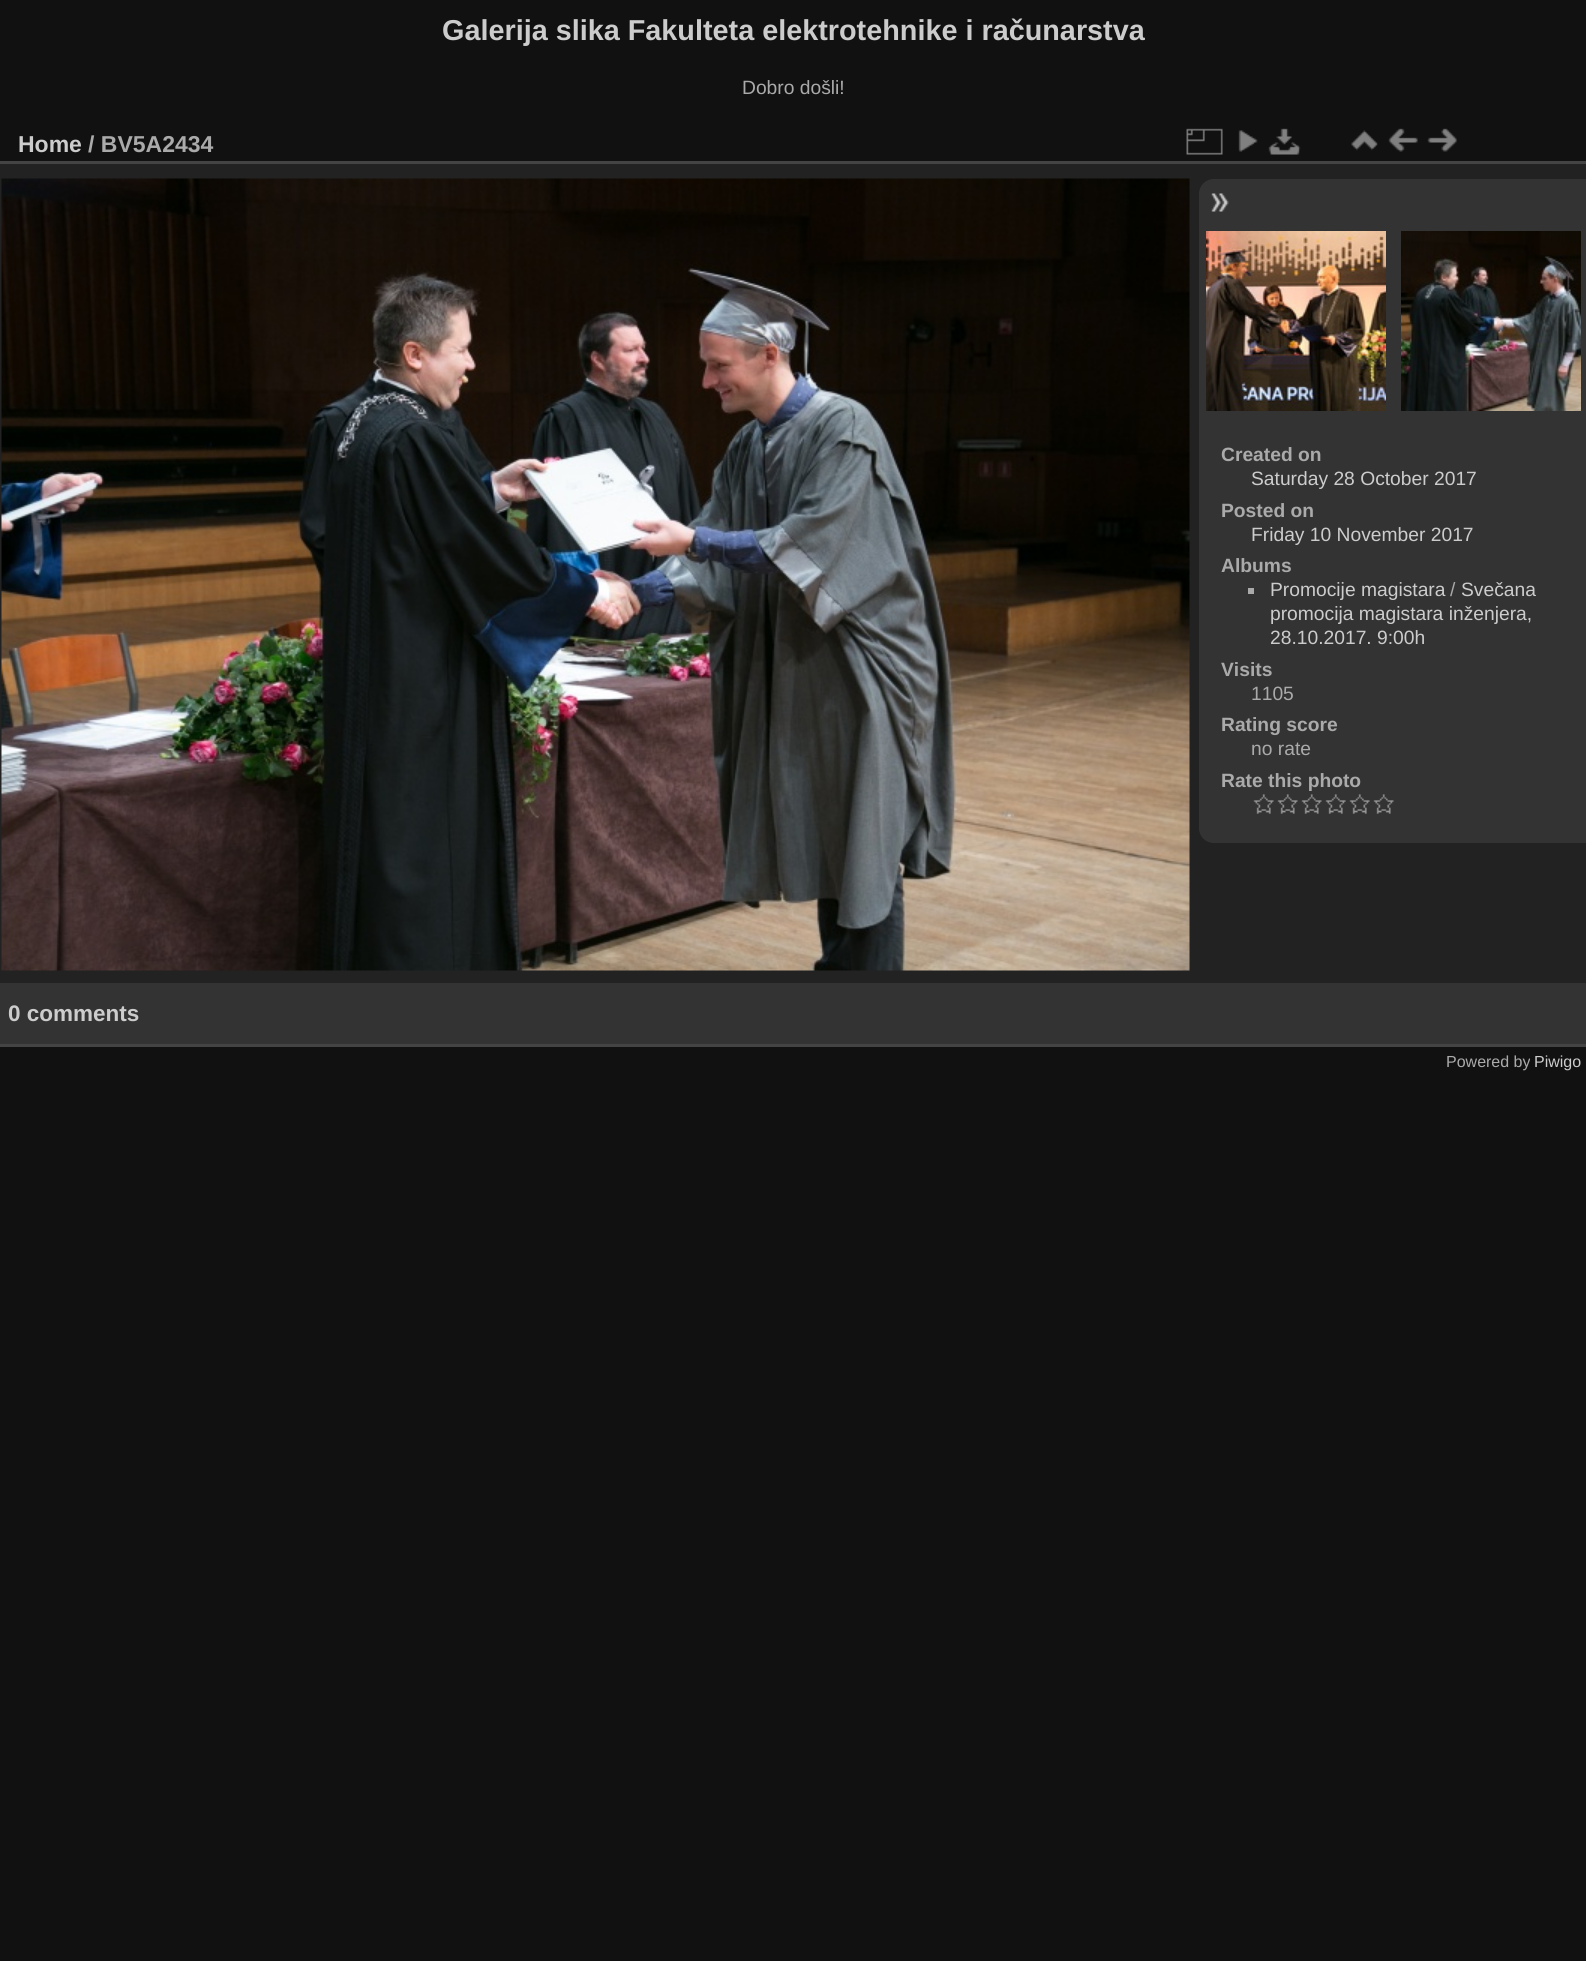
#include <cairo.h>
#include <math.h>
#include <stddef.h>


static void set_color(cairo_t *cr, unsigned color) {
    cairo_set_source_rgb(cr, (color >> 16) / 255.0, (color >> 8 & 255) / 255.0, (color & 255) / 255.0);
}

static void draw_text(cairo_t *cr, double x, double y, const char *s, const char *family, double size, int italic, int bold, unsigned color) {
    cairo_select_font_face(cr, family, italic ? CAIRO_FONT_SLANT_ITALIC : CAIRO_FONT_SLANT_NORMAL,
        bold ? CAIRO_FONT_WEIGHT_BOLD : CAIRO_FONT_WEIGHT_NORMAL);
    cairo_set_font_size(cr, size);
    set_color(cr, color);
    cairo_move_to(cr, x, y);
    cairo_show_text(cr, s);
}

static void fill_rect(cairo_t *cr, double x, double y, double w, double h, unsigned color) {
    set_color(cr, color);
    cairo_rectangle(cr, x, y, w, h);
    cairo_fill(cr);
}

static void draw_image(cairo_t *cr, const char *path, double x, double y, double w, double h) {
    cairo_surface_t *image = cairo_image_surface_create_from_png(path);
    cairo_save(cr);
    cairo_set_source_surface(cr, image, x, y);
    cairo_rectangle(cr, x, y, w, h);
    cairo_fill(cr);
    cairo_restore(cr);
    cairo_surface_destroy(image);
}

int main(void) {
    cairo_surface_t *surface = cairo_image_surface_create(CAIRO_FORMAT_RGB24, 1586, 1961);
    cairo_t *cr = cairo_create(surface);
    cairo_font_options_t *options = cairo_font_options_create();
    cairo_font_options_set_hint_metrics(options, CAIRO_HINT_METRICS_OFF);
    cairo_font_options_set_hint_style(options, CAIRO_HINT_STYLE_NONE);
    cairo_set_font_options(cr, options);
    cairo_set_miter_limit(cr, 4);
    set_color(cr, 0x111111);
    cairo_paint(cr);
    draw_text(cr, 442, 40, "Galerija slika Fakulteta elektrotehnike i računarstva", "Liberation Sans", 28.8, 0, 1, 0xCCCCCC);
    draw_text(cr, 742, 94, "Dobro došli!", "Liberation Sans", 19.25, 0, 0, 0xAAAAAA);
    fill_rect(cr, 0, 164, 1586, 819, 0x222222);
    fill_rect(cr, 0, 1044, 1586, 3, 0x444444);
    fill_rect(cr, 0, 161, 1586, 3, 0x444444);
    draw_text(cr, 18, 152, "Home", "Liberation Sans", 23, 0, 1, 0xCCCCCC);
    draw_text(cr, 88, 152, "/ BV5A2434", "Liberation Sans", 23, 0, 1, 0xAAAAAA);
    draw_image(cr, "assets/img1.png", 1186, 128, 37, 27);
    draw_image(cr, "assets/img2.png", 1238, 130, 20, 22);
    draw_image(cr, "assets/img3.png", 1268, 128, 33, 27);
    draw_image(cr, "assets/img4.png", 1351, 130, 27, 21);
    draw_image(cr, "assets/img5.png", 1388, 128, 30, 24);
    draw_image(cr, "assets/img6.png", 1427, 128, 30, 24);
    draw_image(cr, "assets/img7.png", 1, 178, 1189, 793);
    set_color(cr, 0x333333);
    cairo_new_path(cr);
    cairo_move_to(cr, 1214, 179);
    cairo_line_to(cr, 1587, 179);
    cairo_line_to(cr, 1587, 843);
    cairo_line_to(cr, 1214, 843);
    cairo_curve_to(cr, 1205.5, 843, 1199, 836.5, 1199, 828);
    cairo_line_to(cr, 1199, 194);
    cairo_curve_to(cr, 1199, 185.5, 1205.5, 179, 1214, 179);
    cairo_close_path(cr);
    cairo_fill(cr);
    draw_image(cr, "assets/img8.png", 1211, 193, 18, 19);
    draw_image(cr, "assets/img9.png", 1206, 231, 180, 180);
    draw_image(cr, "assets/img10.png", 1401, 231, 180, 180);
    draw_text(cr, 1221, 461, "Created on", "Liberation Sans", 19.25, 0, 1, 0xAAAAAA);
    draw_text(cr, 1251, 485, "Saturday 28 October 2017", "Liberation Sans", 19.25, 0, 0, 0xCCCCCC);
    draw_text(cr, 1221, 517, "Posted on", "Liberation Sans", 19.25, 0, 1, 0xAAAAAA);
    draw_text(cr, 1251, 541, "Friday 10 November 2017", "Liberation Sans", 19.25, 0, 0, 0xCCCCCC);
    draw_text(cr, 1221, 572, "Albums", "Liberation Sans", 19.25, 0, 1, 0xAAAAAA);
    fill_rect(cr, 1248, 588, 6, 6, 0xAAAAAA);
    draw_text(cr, 1270, 596, "Promocije magistara", "Liberation Sans", 19.25, 0, 0, 0xCCCCCC);
    draw_text(cr, 1450, 596, "/", "Liberation Sans", 19.25, 0, 0, 0xAAAAAA);
    draw_text(cr, 1461, 596, "Svečana", "Liberation Sans", 19.25, 0, 0, 0xCCCCCC);
    draw_text(cr, 1270, 620, "promocija magistara inženjera,", "Liberation Sans", 19.25, 0, 0, 0xCCCCCC);
    draw_text(cr, 1270, 644, "28.10.2017. 9:00h", "Liberation Sans", 19.25, 0, 0, 0xCCCCCC);
    draw_text(cr, 1221, 676, "Visits", "Liberation Sans", 19.25, 0, 1, 0xAAAAAA);
    draw_text(cr, 1251, 700, "1105", "Liberation Sans", 19.25, 0, 0, 0xAAAAAA);
    draw_text(cr, 1221, 731, "Rating score", "Liberation Sans", 19.25, 0, 1, 0xAAAAAA);
    draw_text(cr, 1251, 755, "no rate", "Liberation Sans", 19.25, 0, 0, 0xAAAAAA);
    draw_text(cr, 1221, 787, "Rate this photo", "Liberation Sans", 19.25, 0, 1, 0xAAAAAA);
    draw_image(cr, "assets/img11.png", 1253, 794, 21, 20);
    draw_image(cr, "assets/img12.png", 1277, 794, 21, 20);
    draw_image(cr, "assets/img12.png", 1301, 794, 21, 20);
    draw_image(cr, "assets/img13.png", 1325, 794, 21, 20);
    draw_image(cr, "assets/img13.png", 1349, 794, 21, 20);
    draw_image(cr, "assets/img12.png", 1373, 794, 21, 20);
    fill_rect(cr, 0, 983, 1586, 61, 0x333333);
    draw_text(cr, 8, 1021, "0 comments", "Liberation Sans", 22.5, 0, 1, 0xCCCCCC);
    draw_text(cr, 1446, 1067, "Powered by", "Liberation Sans", 16, 0, 0, 0xAAAAAA);
    draw_text(cr, 1534, 1067, "Piwigo", "Liberation Sans", 16, 0, 0, 0xCCCCCC);
    cairo_surface_write_to_png(surface, "output.png");
    cairo_font_options_destroy(options);
    cairo_destroy(cr);
    cairo_surface_destroy(surface);
    return 0;
}
